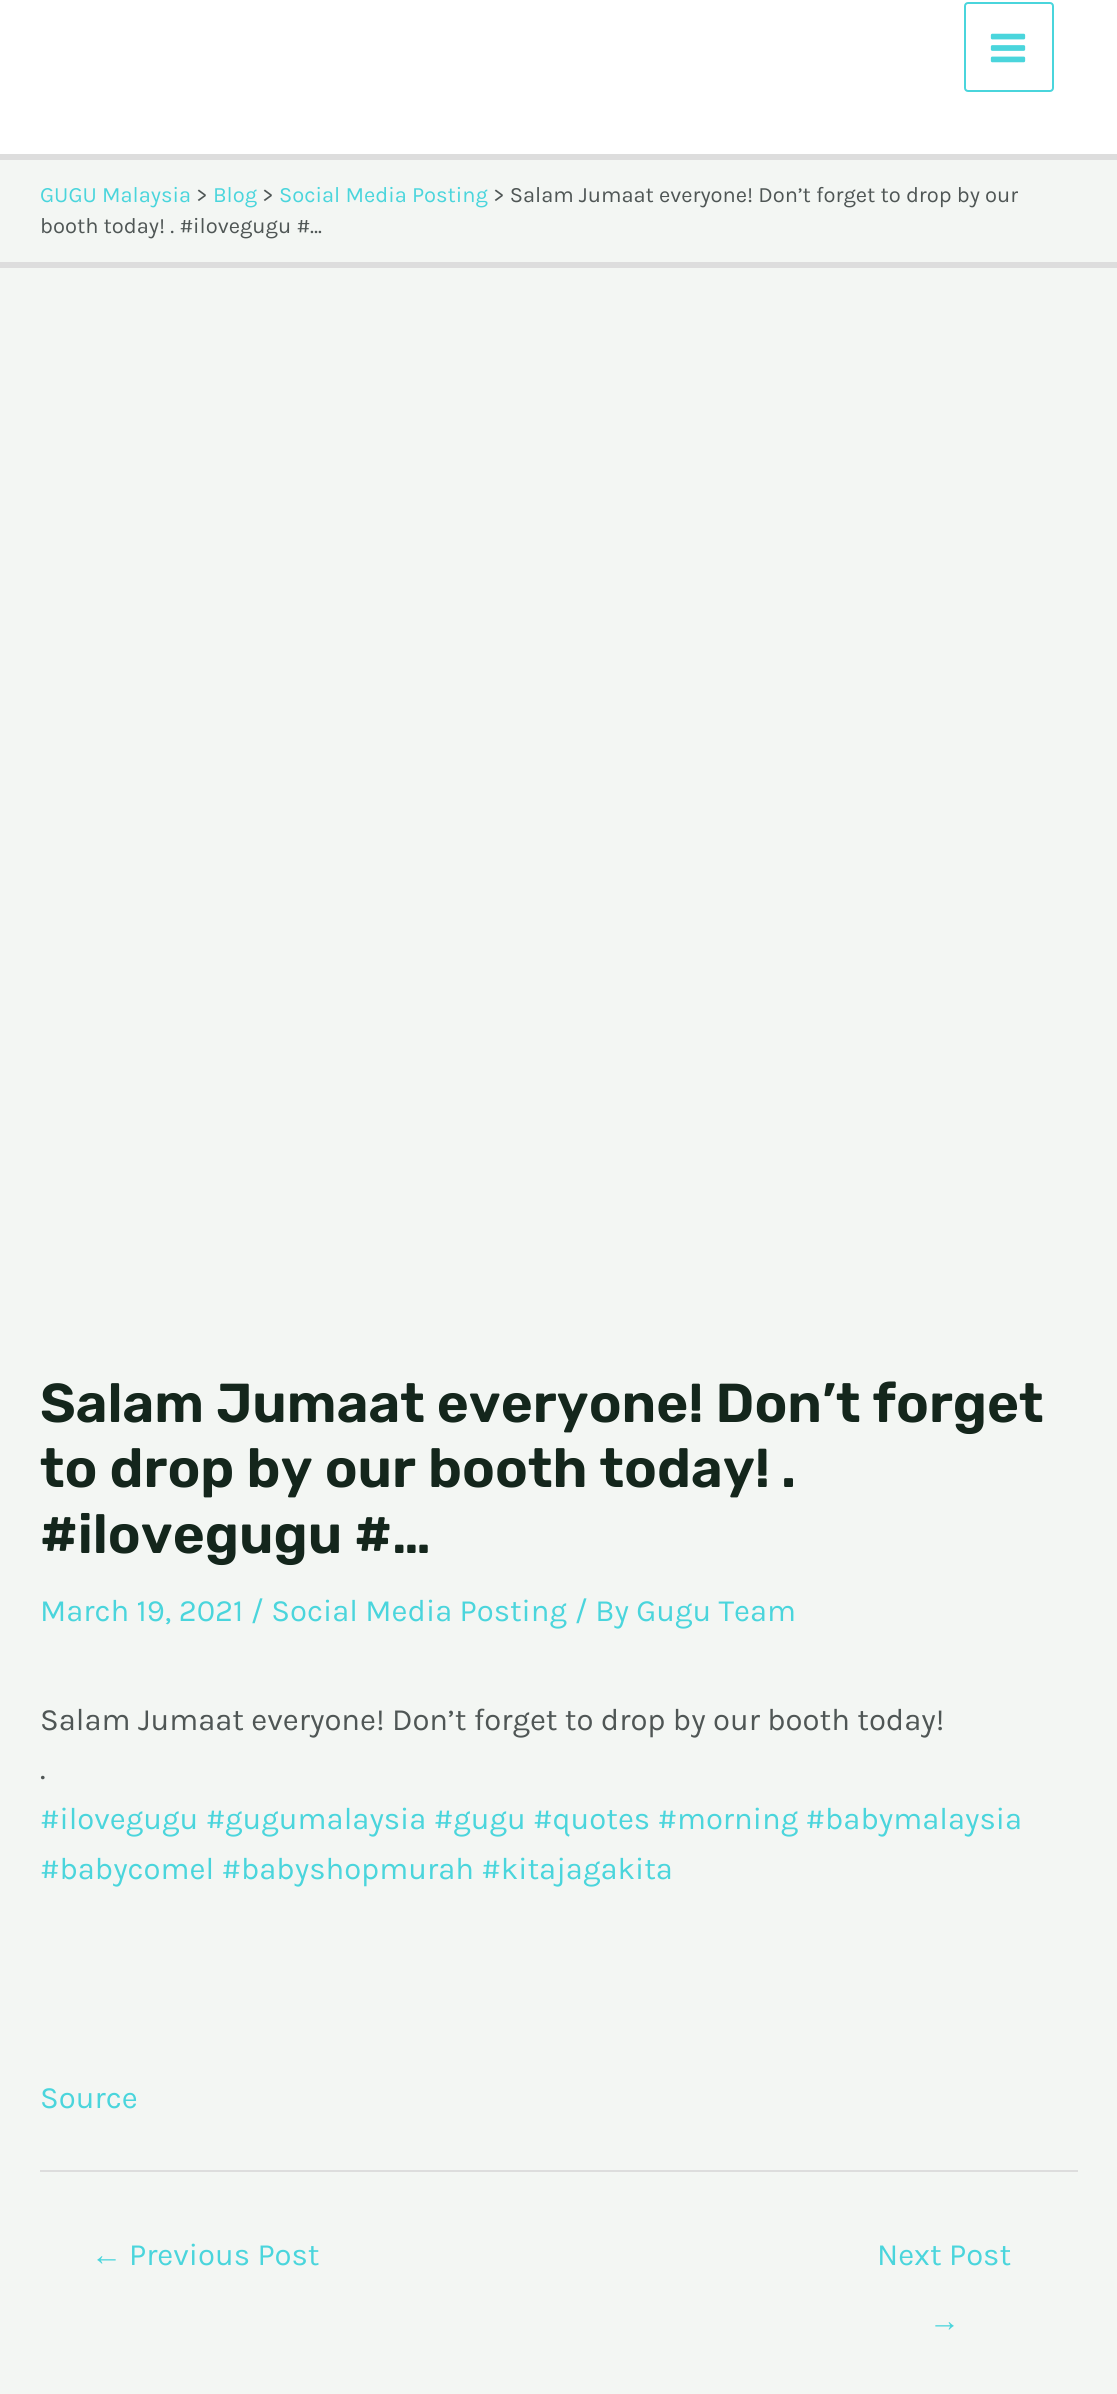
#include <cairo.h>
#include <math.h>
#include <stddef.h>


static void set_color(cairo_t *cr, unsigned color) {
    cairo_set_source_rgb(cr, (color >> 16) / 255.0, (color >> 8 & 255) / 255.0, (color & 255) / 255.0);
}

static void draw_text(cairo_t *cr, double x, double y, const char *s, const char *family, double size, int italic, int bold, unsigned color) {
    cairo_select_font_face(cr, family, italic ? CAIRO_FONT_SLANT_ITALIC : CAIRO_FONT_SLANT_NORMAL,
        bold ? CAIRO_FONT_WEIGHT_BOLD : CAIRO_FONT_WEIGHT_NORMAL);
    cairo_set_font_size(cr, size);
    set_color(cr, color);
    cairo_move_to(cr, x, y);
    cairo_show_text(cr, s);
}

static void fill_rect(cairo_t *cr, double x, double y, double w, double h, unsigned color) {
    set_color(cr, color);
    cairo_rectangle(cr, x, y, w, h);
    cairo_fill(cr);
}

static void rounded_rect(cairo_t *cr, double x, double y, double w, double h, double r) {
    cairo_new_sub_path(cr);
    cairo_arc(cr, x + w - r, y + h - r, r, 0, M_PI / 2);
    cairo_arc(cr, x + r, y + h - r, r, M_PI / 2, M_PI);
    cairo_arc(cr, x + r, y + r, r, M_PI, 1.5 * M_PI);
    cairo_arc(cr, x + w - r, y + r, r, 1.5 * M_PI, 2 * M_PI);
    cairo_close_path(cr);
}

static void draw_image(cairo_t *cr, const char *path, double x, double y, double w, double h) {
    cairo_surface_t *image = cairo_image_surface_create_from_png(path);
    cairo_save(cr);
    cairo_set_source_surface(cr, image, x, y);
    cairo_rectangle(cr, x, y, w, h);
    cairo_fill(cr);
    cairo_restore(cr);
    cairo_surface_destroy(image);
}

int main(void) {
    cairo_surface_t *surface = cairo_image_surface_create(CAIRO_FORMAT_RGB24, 1117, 2394);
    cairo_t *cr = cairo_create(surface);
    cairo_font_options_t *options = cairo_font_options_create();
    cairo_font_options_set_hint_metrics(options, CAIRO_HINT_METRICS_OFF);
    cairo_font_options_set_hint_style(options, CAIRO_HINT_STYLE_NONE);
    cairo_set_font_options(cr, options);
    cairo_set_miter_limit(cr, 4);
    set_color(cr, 0xF3F6F3);
    cairo_paint(cr);
    fill_rect(cr, 0, 0, 1117, 154, 0xFFFFFF);
    fill_rect(cr, 0, 154, 1117, 6, 0xDDDDDD);
    rounded_rect(cr, 965, 3, 88, 88, 3);
    set_color(cr, 0x4AD5DC);
    cairo_stroke(cr);
    draw_image(cr, "assets/img1.png", 990, 33, 36, 30);
    fill_rect(cr, 0, 262, 1117, 6, 0xDDDDDD);
    draw_text(cr, 40, 202, "GUGU Malaysia", "Karla", 21.9, 0, 0, 0x4AD5DC);
    draw_text(cr, 196, 202, ">", "Karla", 21.9, 0, 0, 0x4F5655);
    draw_text(cr, 213, 202, "Blog", "Karla", 21.9, 0, 0, 0x4AD5DC);
    draw_text(cr, 262, 202, ">", "Karla", 21.9, 0, 0, 0x4F5655);
    draw_text(cr, 279, 202, "Social Media Posting", "Karla", 21.9, 0, 0, 0x4AD5DC);
    draw_text(cr, 493, 202, "> Salam Jumaat everyone! Don’t forget to drop by our", "Karla", 21.9, 0, 0, 0x4F5655);
    draw_text(cr, 40, 233, "booth today! . #ilovegugu #…", "Karla", 21.9, 0, 0, 0x4F5655);
    draw_text(cr, 40, 1422, "Salam Jumaat everyone! Don’t forget", "Rubik SemiBold", 54.75, 0, 0, 0x14261C);
    draw_text(cr, 40, 1487, "to drop by our booth today!", "Rubik SemiBold", 54.75, 0, 0, 0x14261C);
    draw_text(cr, 781, 1487, ".", "Rubik SemiBold", 54.75, 0, 0, 0x14261C);
    draw_text(cr, 40, 1553, "#ilovegugu #…", "Rubik SemiBold", 54.75, 0, 0, 0x14261C);
    draw_text(cr, 40, 1621, "March 19, 2021 / Social Media Posting / By Gugu Team", "Karla", 31, 0, 0, 0x4AD5DC);
    draw_text(cr, 40, 1730, "Salam Jumaat everyone! Don’t forget to drop by our booth today!", "Karla", 31, 0, 0, 0x4F5655);
    draw_text(cr, 40, 1779, ".", "Karla", 31, 0, 0, 0x4F5655);
    draw_text(cr, 40, 1829, "#ilovegugu #gugumalaysia #gugu #quotes #morning #babymalaysia", "Karla", 31, 0, 0, 0x4AD5DC);
    draw_text(cr, 40, 1879, "#babycomel #babyshopmurah #kitajagakita", "Karla", 31, 0, 0, 0x4AD5DC);
    draw_text(cr, 40, 2108, "Source", "Karla", 31, 0, 0, 0x4AD5DC);
    fill_rect(cr, 40, 2170, 1038, 2, 0xDDDDDD);
    draw_text(cr, 91, 2265, "←", "Liberation Sans", 31, 0, 0, 0x4AD5DC);
    draw_text(cr, 129, 2265, "Previous Post", "Karla", 31, 0, 0, 0x4AD5DC);
    draw_text(cr, 877, 2265, "Next Post", "Karla", 31, 0, 0, 0x4AD5DC);
    draw_text(cr, 929, 2331, "→", "Liberation Sans", 31, 0, 0, 0x4AD5DC);
    cairo_surface_write_to_png(surface, "output.png");
    cairo_font_options_destroy(options);
    cairo_destroy(cr);
    cairo_surface_destroy(surface);
    return 0;
}
